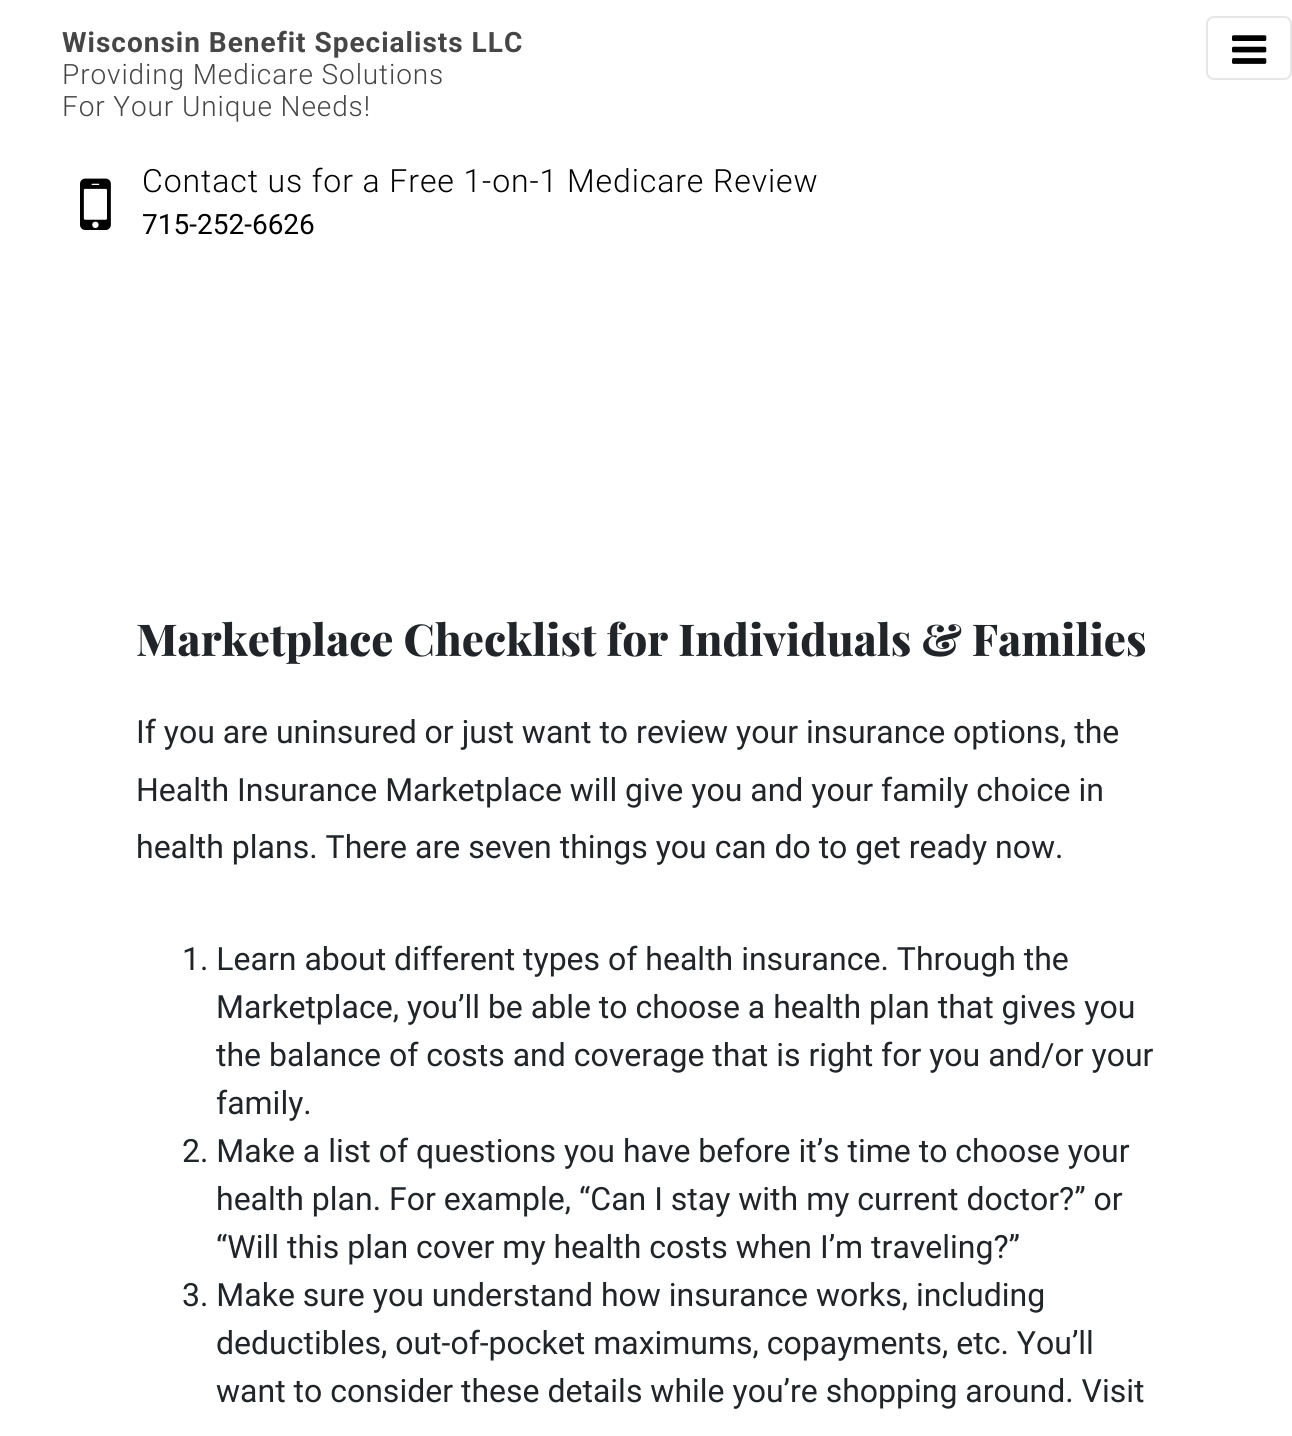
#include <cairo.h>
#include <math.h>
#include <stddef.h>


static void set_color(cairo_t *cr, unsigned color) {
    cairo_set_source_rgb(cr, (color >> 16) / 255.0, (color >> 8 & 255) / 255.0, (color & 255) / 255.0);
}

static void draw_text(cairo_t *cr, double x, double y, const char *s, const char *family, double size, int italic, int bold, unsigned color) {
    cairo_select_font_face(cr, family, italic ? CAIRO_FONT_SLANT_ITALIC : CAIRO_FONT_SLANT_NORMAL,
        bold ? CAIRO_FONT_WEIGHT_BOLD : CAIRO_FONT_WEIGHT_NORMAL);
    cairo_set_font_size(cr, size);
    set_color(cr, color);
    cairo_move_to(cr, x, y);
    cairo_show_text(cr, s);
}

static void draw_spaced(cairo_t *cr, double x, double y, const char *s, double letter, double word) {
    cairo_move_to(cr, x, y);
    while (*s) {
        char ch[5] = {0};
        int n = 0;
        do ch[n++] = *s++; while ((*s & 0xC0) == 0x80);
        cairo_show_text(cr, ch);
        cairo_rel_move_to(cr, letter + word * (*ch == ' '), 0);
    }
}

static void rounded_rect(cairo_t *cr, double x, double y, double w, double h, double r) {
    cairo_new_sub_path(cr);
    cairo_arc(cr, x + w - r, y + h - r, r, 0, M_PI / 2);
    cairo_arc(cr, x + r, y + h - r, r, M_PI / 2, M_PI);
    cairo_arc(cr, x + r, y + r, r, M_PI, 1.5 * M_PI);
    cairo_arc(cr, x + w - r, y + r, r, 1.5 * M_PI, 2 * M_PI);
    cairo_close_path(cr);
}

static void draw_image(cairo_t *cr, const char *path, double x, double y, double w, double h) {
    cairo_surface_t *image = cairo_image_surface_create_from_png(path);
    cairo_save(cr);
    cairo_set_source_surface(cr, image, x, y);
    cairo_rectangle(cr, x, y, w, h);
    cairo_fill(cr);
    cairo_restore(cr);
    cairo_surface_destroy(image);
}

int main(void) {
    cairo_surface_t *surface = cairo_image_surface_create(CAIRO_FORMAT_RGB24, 1292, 1436);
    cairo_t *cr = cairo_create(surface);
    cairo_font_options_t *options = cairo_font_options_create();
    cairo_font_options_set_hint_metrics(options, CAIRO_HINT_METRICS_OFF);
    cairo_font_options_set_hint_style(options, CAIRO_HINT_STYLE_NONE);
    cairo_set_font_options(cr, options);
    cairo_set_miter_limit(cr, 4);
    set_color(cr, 0xFFFFFF);
    cairo_paint(cr);
    cairo_select_font_face(cr, "Roboto", CAIRO_FONT_SLANT_NORMAL, CAIRO_FONT_WEIGHT_BOLD);
    cairo_set_font_size(cr, 28);
    set_color(cr, 0x464646);
    draw_spaced(cr, 62, 52, "Wisconsin Benefit Specialists LLC", 1, 0);
    cairo_select_font_face(cr, "Roboto Light", CAIRO_FONT_SLANT_NORMAL, CAIRO_FONT_WEIGHT_NORMAL);
    draw_spaced(cr, 62, 84, "Providing Medicare Solutions", 0.9, 0);
    draw_spaced(cr, 62, 116, "For Your Unique Needs!", 0.9, 0);
    draw_image(cr, "assets/img1.png", 80, 178, 31, 52);
    cairo_set_font_size(cr, 32);
    set_color(cr, 0x000000);
    draw_spaced(cr, 142, 192, "Contact us for a Free 1-on-1 Medicare Review", 0.9, 0);
    draw_text(cr, 142, 234, "715-252-6626", "Roboto", 28, 0, 0, 0x000000);
    rounded_rect(cr, 1207, 17, 84, 62, 7);
    set_color(cr, 0xE6E6E6);
    cairo_stroke(cr);
    draw_image(cr, "assets/img2.png", 1232, 35, 35, 29);
    draw_text(cr, 136, 656, "Marketplace Checklist for Individuals & Families", "Playfair Display ExtraBold", 44, 0, 0, 0x212529);
    draw_text(cr, 136, 743, "If you are uninsured or just want to review your insurance options, the", "Roboto", 32, 0, 0, 0x212529);
    draw_text(cr, 136, 801, "Health Insurance Marketplace will give you and your family choice in", "Roboto", 32, 0, 0, 0x212529);
    draw_text(cr, 136, 858, "health plans. There are seven things you can do to get ready now.", "Roboto", 32, 0, 0, 0x212529);
    draw_text(cr, 182, 970, "1. Learn about different types of health insurance. Through the", "Roboto", 32, 0, 0, 0x212529);
    draw_text(cr, 216, 1018, "Marketplace, you’ll be able to choose a health plan that gives you", "Roboto", 32, 0, 0, 0x212529);
    draw_text(cr, 216, 1066, "the balance of costs and coverage that is right for you and/or your", "Roboto", 32, 0, 0, 0x212529);
    draw_text(cr, 216, 1114, "family.", "Roboto", 32, 0, 0, 0x212529);
    draw_text(cr, 182, 1162, "2. Make a list of questions you have before it’s time to choose your", "Roboto", 32, 0, 0, 0x212529);
    draw_text(cr, 216, 1210, "health plan. For example, “Can I stay with my current doctor?” or", "Roboto", 32, 0, 0, 0x212529);
    draw_text(cr, 216, 1258, "“Will this plan cover my health costs when I’m traveling?”", "Roboto", 32, 0, 0, 0x212529);
    draw_text(cr, 182, 1306, "3. Make sure you understand how insurance works, including", "Roboto", 32, 0, 0, 0x212529);
    draw_text(cr, 216, 1354, "deductibles, out-of-pocket maximums, copayments, etc. You’ll", "Roboto", 32, 0, 0, 0x212529);
    draw_text(cr, 216, 1402, "want to consider these details while you’re shopping around. Visit", "Roboto", 32, 0, 0, 0x212529);
    cairo_surface_write_to_png(surface, "output.png");
    cairo_font_options_destroy(options);
    cairo_destroy(cr);
    cairo_surface_destroy(surface);
    return 0;
}
